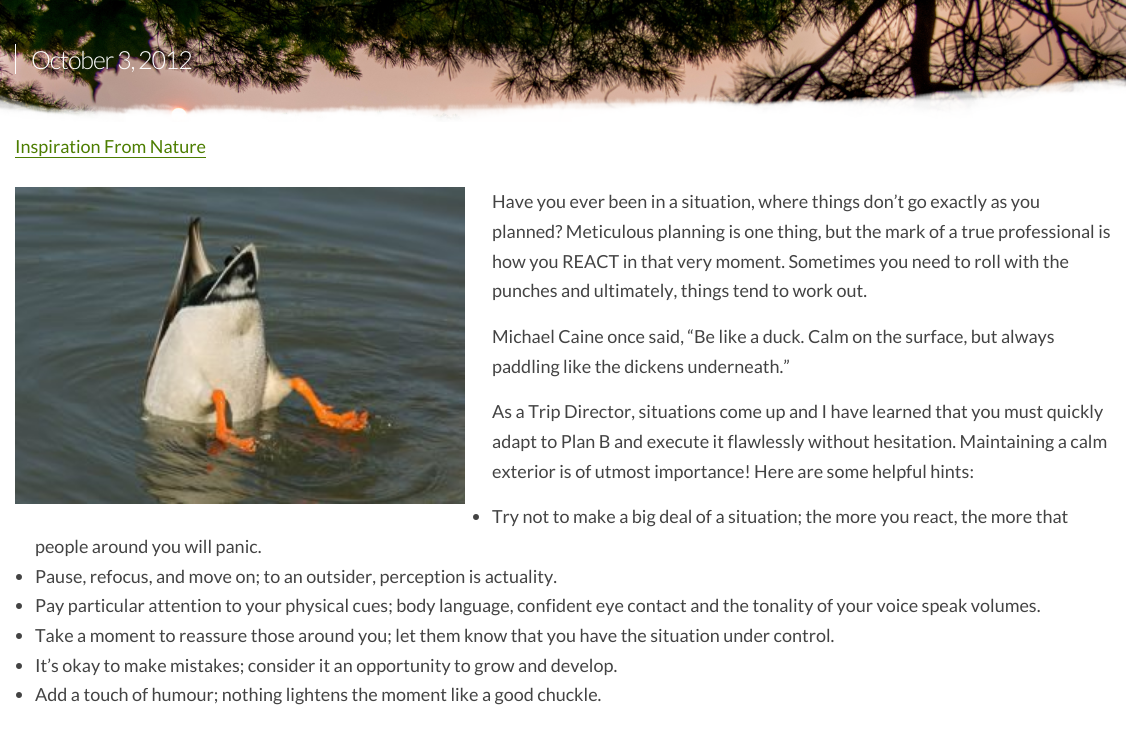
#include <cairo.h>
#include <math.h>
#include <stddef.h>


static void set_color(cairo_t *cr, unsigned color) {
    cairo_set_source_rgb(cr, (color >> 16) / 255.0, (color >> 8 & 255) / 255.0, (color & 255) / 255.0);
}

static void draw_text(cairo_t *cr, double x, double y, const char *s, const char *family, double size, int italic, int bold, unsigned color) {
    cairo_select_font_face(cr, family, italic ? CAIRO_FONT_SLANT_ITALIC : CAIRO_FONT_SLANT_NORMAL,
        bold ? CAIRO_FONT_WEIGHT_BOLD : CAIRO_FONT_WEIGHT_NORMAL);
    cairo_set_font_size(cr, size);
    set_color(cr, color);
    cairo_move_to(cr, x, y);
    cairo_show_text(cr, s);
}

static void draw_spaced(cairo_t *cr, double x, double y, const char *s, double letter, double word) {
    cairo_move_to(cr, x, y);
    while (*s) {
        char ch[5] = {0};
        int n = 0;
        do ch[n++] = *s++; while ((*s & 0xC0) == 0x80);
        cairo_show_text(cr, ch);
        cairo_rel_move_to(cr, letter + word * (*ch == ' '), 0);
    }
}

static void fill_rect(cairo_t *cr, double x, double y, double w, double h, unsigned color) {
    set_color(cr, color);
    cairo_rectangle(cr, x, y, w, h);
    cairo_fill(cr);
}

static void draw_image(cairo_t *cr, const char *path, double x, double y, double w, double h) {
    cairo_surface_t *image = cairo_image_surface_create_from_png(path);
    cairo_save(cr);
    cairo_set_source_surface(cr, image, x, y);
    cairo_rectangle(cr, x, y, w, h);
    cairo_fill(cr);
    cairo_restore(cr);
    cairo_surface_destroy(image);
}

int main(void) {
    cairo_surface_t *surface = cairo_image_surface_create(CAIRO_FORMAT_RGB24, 1126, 733);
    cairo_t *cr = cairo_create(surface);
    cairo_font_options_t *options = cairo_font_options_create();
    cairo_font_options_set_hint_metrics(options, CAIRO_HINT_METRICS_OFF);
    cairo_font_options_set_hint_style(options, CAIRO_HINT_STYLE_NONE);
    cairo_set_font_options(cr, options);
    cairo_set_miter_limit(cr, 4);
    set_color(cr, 0xFFFFFF);
    cairo_paint(cr);
    draw_image(cr, "assets/img1.png", 0, 0, 1126, 123);
    cairo_select_font_face(cr, "Lato Light", CAIRO_FONT_SLANT_NORMAL, CAIRO_FONT_WEIGHT_NORMAL);
    cairo_set_font_size(cr, 25);
    set_color(cr, 0xFEFEFE);
    draw_spaced(cr, 31, 69, "October 3, 2012", -1.1, 0);
    fill_rect(cr, 15, 44, 1, 30, 0xFEFEFE);
    draw_image(cr, "assets/img2.png", 0, 77, 1126, 46);
    draw_text(cr, 15, 153, "Inspiration From Nature", "Lato", 18, 0, 0, 0x4C7D00);
    fill_rect(cr, 15, 157, 191, 1, 0x4C7D00);
    draw_image(cr, "assets/img3.png", 15, 187, 450, 317);
    draw_text(cr, 492, 208, "Have you ever been in a situation, where things don’t go exactly as you", "Lato", 18, 0, 0, 0x434343);
    draw_text(cr, 492, 238, "planned? Meticulous planning is one thing, but the mark of a true professional is", "Lato", 18, 0, 0, 0x434343);
    draw_text(cr, 492, 268, "how you REACT in that very moment. Sometimes you need to roll with the", "Lato", 18, 0, 0, 0x434343);
    draw_text(cr, 492, 297, "punches and ultimately, things tend to work out.", "Lato", 18, 0, 0, 0x434343);
    draw_text(cr, 492, 343, "Michael Caine once said, “Be like a duck. Calm on the surface, but always", "Lato", 18, 0, 0, 0x434343);
    draw_text(cr, 492, 373, "paddling like the dickens underneath.”", "Lato", 18, 0, 0, 0x434343);
    draw_text(cr, 492, 418, "As a Trip Director, situations come up and I have learned that you must quickly", "Lato", 18, 0, 0, 0x434343);
    draw_text(cr, 492, 448, "adapt to Plan B and execute it flawlessly without hesitation. Maintaining a calm", "Lato", 18, 0, 0, 0x434343);
    draw_text(cr, 492, 478, "exterior is of utmost importance! Here are some helpful hints:", "Lato", 18, 0, 0, 0x434343);
    cairo_new_path(cr);
    cairo_arc(cr, 476, 517, 3, 0, 2 * M_PI);
    cairo_fill(cr);
    draw_text(cr, 492, 523, "Try not to make a big deal of a situation; the more you react, the more that", "Lato", 18, 0, 0, 0x434343);
    draw_text(cr, 35, 553, "people around you will panic.", "Lato", 18, 0, 0, 0x434343);
    cairo_new_path(cr);
    cairo_arc(cr, 19, 577, 3, 0, 2 * M_PI);
    cairo_fill(cr);
    draw_text(cr, 35, 583, "Pause, refocus, and move on; to an outsider, perception is actuality.", "Lato", 18, 0, 0, 0x434343);
    cairo_new_path(cr);
    cairo_arc(cr, 19, 606, 3, 0, 2 * M_PI);
    cairo_fill(cr);
    draw_text(cr, 35, 612, "Pay particular attention to your physical cues; body language, confident eye contact and the tonality of your voice speak volumes.", "Lato", 18, 0, 0, 0x434343);
    cairo_new_path(cr);
    cairo_arc(cr, 19, 636, 3, 0, 2 * M_PI);
    cairo_fill(cr);
    draw_text(cr, 35, 642, "Take a moment to reassure those around you; let them know that you have the situation under control.", "Lato", 18, 0, 0, 0x434343);
    cairo_new_path(cr);
    cairo_arc(cr, 19, 666, 3, 0, 2 * M_PI);
    cairo_fill(cr);
    draw_text(cr, 35, 672, "It’s okay to make mistakes; consider it an opportunity to grow and develop.", "Lato", 18, 0, 0, 0x434343);
    cairo_new_path(cr);
    cairo_arc(cr, 19, 695, 3, 0, 2 * M_PI);
    cairo_fill(cr);
    draw_text(cr, 35, 701, "Add a touch of humour; nothing lightens the moment like a good chuckle.", "Lato", 18, 0, 0, 0x434343);
    cairo_surface_write_to_png(surface, "output.png");
    cairo_font_options_destroy(options);
    cairo_destroy(cr);
    cairo_surface_destroy(surface);
    return 0;
}
